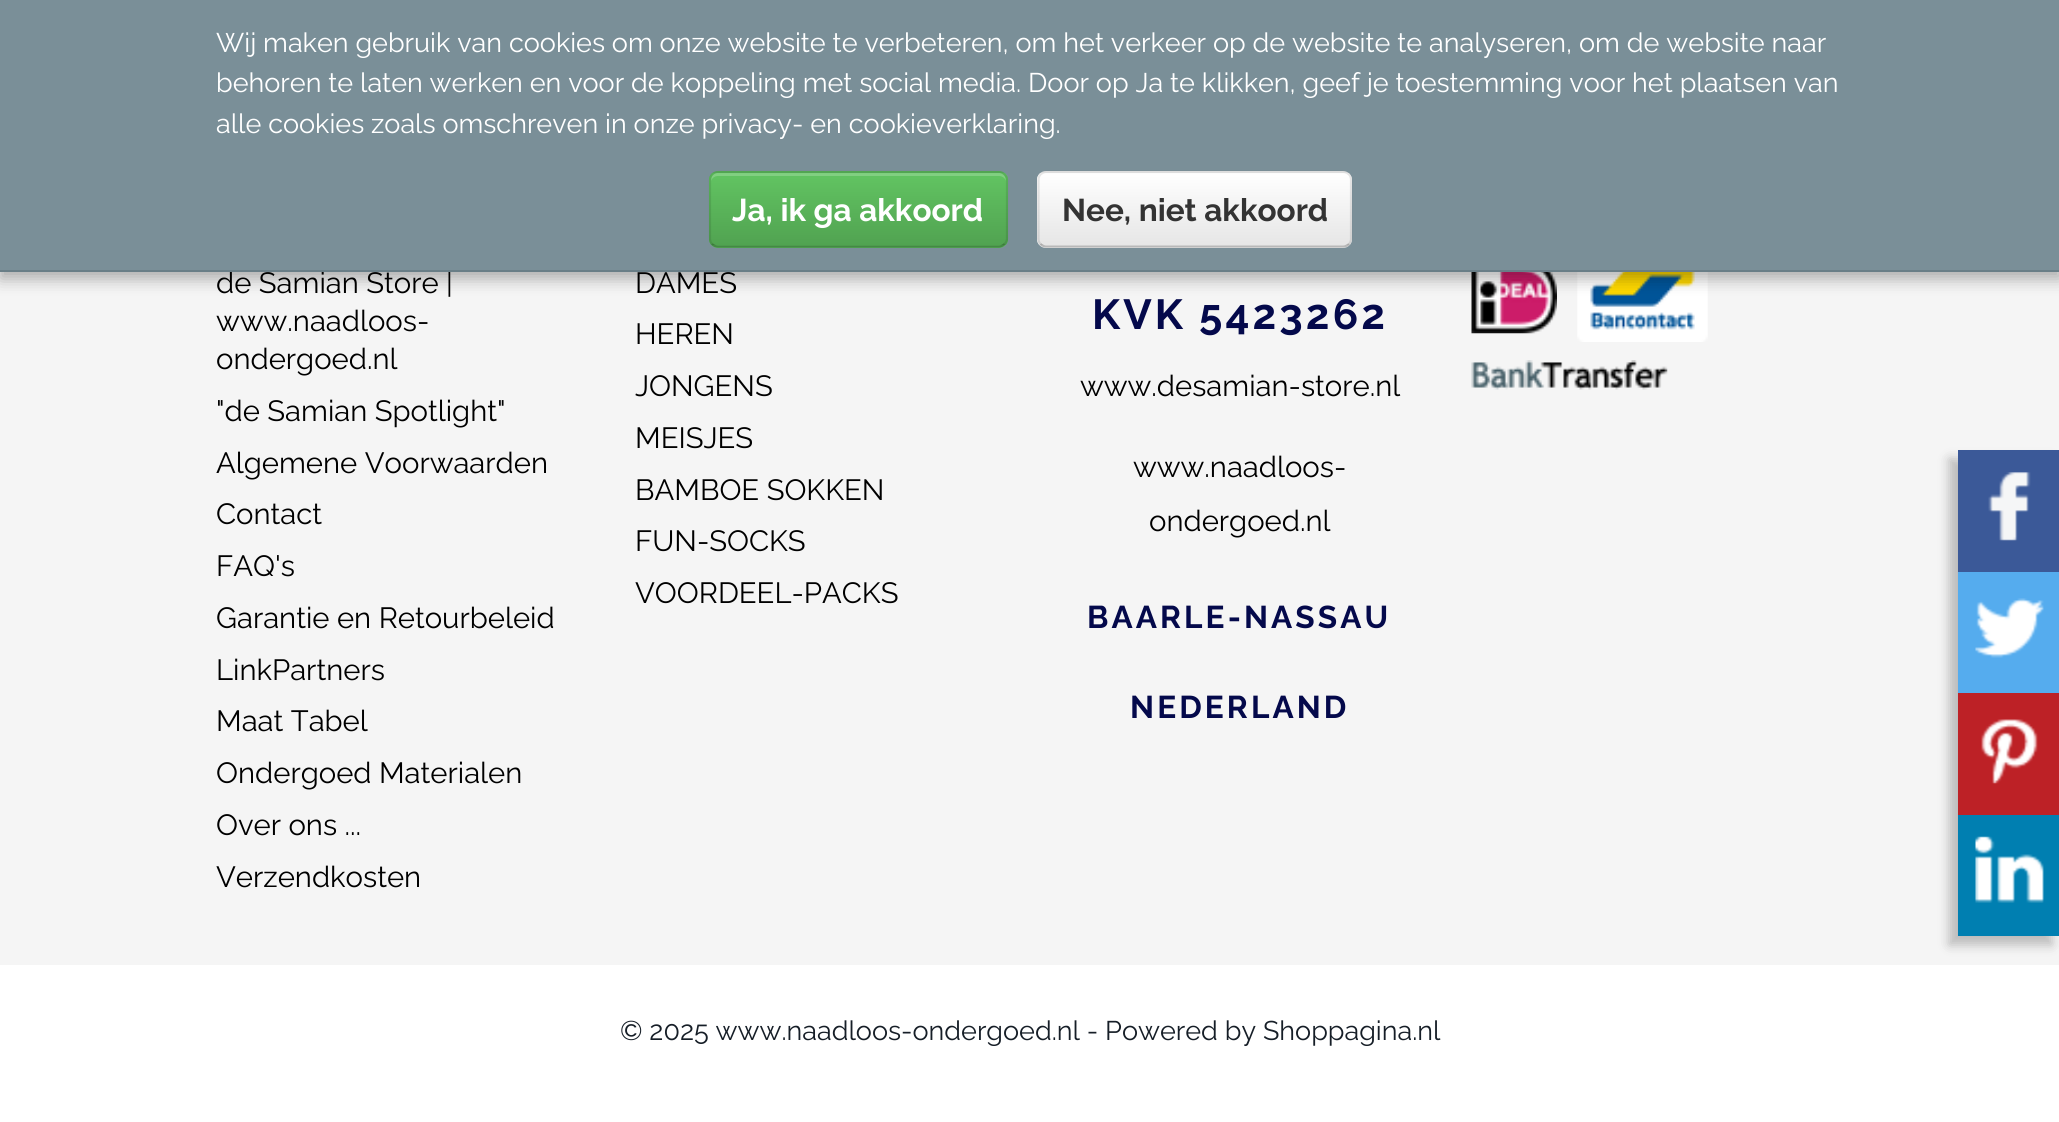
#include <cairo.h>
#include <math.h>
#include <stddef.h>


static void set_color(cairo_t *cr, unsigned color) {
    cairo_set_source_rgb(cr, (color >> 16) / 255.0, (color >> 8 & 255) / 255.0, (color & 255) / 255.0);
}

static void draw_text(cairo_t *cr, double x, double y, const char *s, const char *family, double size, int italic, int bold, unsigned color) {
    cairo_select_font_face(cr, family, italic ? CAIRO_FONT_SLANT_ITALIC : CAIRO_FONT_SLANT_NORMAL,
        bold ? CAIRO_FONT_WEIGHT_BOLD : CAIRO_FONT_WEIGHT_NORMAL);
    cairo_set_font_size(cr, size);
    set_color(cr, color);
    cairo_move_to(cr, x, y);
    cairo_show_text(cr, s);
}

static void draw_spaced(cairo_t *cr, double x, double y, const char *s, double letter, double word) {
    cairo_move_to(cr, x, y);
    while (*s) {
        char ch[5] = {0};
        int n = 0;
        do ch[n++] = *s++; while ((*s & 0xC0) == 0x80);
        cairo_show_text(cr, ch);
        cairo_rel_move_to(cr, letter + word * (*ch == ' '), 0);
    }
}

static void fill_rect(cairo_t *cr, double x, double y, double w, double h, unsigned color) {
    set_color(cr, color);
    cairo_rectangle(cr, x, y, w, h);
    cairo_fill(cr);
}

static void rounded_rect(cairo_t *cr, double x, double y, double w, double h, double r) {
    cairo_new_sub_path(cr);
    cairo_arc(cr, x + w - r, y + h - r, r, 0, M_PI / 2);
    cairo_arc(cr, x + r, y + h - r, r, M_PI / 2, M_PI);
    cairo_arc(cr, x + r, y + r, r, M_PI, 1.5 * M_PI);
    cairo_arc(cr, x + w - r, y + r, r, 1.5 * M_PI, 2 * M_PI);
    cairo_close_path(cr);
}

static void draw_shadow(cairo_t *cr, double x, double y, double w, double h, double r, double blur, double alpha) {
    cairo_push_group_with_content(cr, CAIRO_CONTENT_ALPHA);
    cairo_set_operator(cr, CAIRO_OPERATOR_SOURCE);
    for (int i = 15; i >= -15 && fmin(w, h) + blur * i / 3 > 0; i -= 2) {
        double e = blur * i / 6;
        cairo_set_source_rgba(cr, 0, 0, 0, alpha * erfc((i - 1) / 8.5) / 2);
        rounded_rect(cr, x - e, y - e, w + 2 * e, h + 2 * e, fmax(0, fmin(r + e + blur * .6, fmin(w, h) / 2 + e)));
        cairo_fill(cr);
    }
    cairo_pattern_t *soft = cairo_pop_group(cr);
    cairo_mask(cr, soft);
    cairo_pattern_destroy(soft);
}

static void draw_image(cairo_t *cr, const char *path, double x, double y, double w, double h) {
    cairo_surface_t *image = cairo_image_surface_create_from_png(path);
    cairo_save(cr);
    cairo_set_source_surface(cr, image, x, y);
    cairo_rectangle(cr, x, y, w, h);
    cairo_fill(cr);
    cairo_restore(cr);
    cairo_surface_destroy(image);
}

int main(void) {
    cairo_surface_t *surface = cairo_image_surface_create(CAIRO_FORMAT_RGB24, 2059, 1122);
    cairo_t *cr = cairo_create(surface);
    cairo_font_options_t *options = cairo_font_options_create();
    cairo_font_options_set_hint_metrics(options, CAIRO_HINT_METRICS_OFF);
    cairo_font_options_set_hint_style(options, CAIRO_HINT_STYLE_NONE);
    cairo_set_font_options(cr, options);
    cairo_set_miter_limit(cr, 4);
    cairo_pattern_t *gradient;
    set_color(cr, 0xFFFFFF);
    cairo_paint(cr);
    fill_rect(cr, 0, 272, 2059, 693, 0xF5F5F5);
    draw_image(cr, "assets/img1.png", 1471, 272, 86, 62);
    draw_image(cr, "assets/img2.png", 1577, 272, 131, 70);
    set_color(cr, 0x000000);
    draw_shadow(cr, 0, 7, 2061, 272, 0, 8, 0.3);
    fill_rect(cr, 0, 0, 2059, 270, 0x7A8F98);
    draw_text(cr, 216, 293, "de Samian Store |", "Raleway", 29.25, 0, 0, 0x000000);
    fill_rect(cr, 0, 270, 2059, 2, 0x697E87);
    draw_text(cr, 216, 52, "Wij maken gebruik van cookies om onze website te verbeteren, om het verkeer op de website te analyseren, om de website naar", "Raleway", 27, 0, 0, 0xFFFFFF);
    draw_text(cr, 216, 92, "behoren te laten werken en voor de koppeling met social media. Door op Ja te klikken, geef je toestemming voor het plaatsen van", "Raleway", 27, 0, 0, 0xFFFFFF);
    draw_text(cr, 216, 133, "alle cookies zoals omschreven in onze privacy- en cookieverklaring.", "Raleway", 27, 0, 0, 0xFFFFFF);
    set_color(cr, 0x5BB75B);
    rounded_rect(cr, 709, 171, 299, 77, 9);
    cairo_fill(cr);
    cairo_save(cr);
    rounded_rect(cr, 709, 171, 299, 77, 9);
    cairo_clip(cr);
    gradient = cairo_pattern_create_linear(858, 173, 858, 245);
    cairo_pattern_add_color_stop_rgba(gradient, 0, 0.384, 0.769, 0.384, 1);
    cairo_pattern_add_color_stop_rgba(gradient, 1, 0.318, 0.639, 0.318, 1);
    cairo_set_source(cr, gradient);
    cairo_pattern_destroy(gradient);
    cairo_rectangle(cr, 709, 173, 299, 72);
    cairo_fill(cr);
    cairo_restore(cr);
    cairo_set_source_rgba(cr, 1, 1, 1, 0.2);
    cairo_new_path(cr);
    cairo_move_to(cr, 718, 176);
    cairo_line_to(cr, 999, 176);
    cairo_curve_to(cr, 1003, 176, 1006, 179, 1006, 182);
    cairo_curve_to(cr, 1006, 178, 1005, 174, 1000, 173);
    cairo_line_to(cr, 717, 173);
    cairo_curve_to(cr, 712, 174, 711, 178, 711, 182);
    cairo_curve_to(cr, 711, 179, 714, 176, 718, 176);
    cairo_close_path(cr);
    cairo_fill(cr);
    cairo_new_path(cr);
    cairo_move_to(cr, 1004.5, 244);
    cairo_curve_to(cr, 1003, 245.5, 1001, 246.5, 999, 246.5);
    cairo_line_to(cr, 718, 246.5);
    cairo_curve_to(cr, 715.5, 246.5, 713.5, 245.5, 712, 244);
    cairo_set_source_rgba(cr, 0, 0, 0, 0.25);
    cairo_set_line_width(cr, 2.2);
    cairo_stroke(cr);
    cairo_new_path(cr);
    cairo_move_to(cr, 712, 244);
    cairo_curve_to(cr, 710.5, 242.5, 710, 240.5, 710, 238.5);
    cairo_line_to(cr, 710, 180);
    cairo_curve_to(cr, 710, 178, 710.5, 176, 712, 174.5);
    cairo_curve_to(cr, 713.5, 173, 715.5, 172, 718, 172);
    cairo_line_to(cr, 999, 172);
    cairo_curve_to(cr, 1001, 172, 1003, 173, 1004.5, 174.5);
    cairo_curve_to(cr, 1006, 176, 1007, 178, 1007, 180);
    cairo_line_to(cr, 1007, 238.5);
    cairo_curve_to(cr, 1007, 240.5, 1006, 242.5, 1004.5, 244);
    cairo_set_source_rgba(cr, 0, 0, 0, 0.1);
    cairo_stroke(cr);
    draw_text(cr, 732, 221, "Ja, ik ga akkoord", "Raleway", 31.5, 0, 1, 0xFFFFFF);
    set_color(cr, 0xF5F5F5);
    rounded_rect(cr, 1037, 171, 315, 77, 9);
    cairo_fill(cr);
    cairo_save(cr);
    rounded_rect(cr, 1037, 171, 315, 77, 9);
    cairo_clip(cr);
    gradient = cairo_pattern_create_linear(1195, 173, 1195, 245);
    cairo_pattern_add_color_stop_rgba(gradient, 0, 1, 1, 1, 1);
    cairo_pattern_add_color_stop_rgba(gradient, 1, 0.902, 0.902, 0.902, 1);
    cairo_set_source(cr, gradient);
    cairo_pattern_destroy(gradient);
    cairo_rectangle(cr, 1037, 173, 315, 72);
    cairo_fill(cr);
    cairo_restore(cr);
    cairo_new_path(cr);
    cairo_move_to(cr, 1349, 244);
    cairo_curve_to(cr, 1347.5, 245.5, 1345.5, 246.5, 1343, 246.5);
    cairo_line_to(cr, 1046, 246.5);
    cairo_curve_to(cr, 1044, 246.5, 1042, 245.5, 1040.5, 244);
    cairo_set_source_rgba(cr, 0, 0, 0, 0.25);
    cairo_stroke(cr);
    cairo_new_path(cr);
    cairo_move_to(cr, 1040.5, 244);
    cairo_curve_to(cr, 1039, 242.5, 1038.5, 240.5, 1038.5, 238.5);
    cairo_line_to(cr, 1038.5, 180);
    cairo_curve_to(cr, 1038.5, 178, 1039, 176, 1040.5, 174.5);
    cairo_curve_to(cr, 1042, 173, 1044, 172, 1046, 172);
    cairo_line_to(cr, 1343, 172);
    cairo_curve_to(cr, 1345.5, 172, 1347.5, 173, 1349, 174.5);
    cairo_curve_to(cr, 1350.5, 176, 1351, 178, 1351, 180);
    cairo_line_to(cr, 1351, 238.5);
    cairo_curve_to(cr, 1351, 240.5, 1350.5, 242.5, 1349, 244);
    cairo_set_source_rgba(cr, 0, 0, 0, 0.1);
    cairo_stroke(cr);
    draw_text(cr, 1062, 221, "Nee, niet akkoord", "Raleway", 31.5, 0, 1, 0x333333);
    draw_text(cr, 216, 331, "www.naadloos-", "Raleway", 29.25, 0, 0, 0x000000);
    draw_text(cr, 216, 369, "ondergoed.nl", "Raleway", 29.25, 0, 0, 0x000000);
    draw_text(cr, 216, 421, "\"de Samian Spotlight\"", "Raleway", 29.25, 0, 0, 0x000000);
    draw_text(cr, 216, 473, "Algemene Voorwaarden", "Raleway", 29.25, 0, 0, 0x000000);
    draw_text(cr, 216, 524, "Contact", "Raleway", 29.25, 0, 0, 0x000000);
    draw_text(cr, 216, 576, "FAQ's", "Raleway", 29.25, 0, 0, 0x000000);
    draw_text(cr, 216, 628, "Garantie en Retourbeleid", "Raleway", 29.25, 0, 0, 0x000000);
    draw_text(cr, 216, 680, "LinkPartners", "Raleway", 29.25, 0, 0, 0x000000);
    draw_text(cr, 216, 731, "Maat Tabel", "Raleway", 29.25, 0, 0, 0x000000);
    draw_text(cr, 216, 783, "Ondergoed Materialen", "Raleway", 29.25, 0, 0, 0x000000);
    draw_text(cr, 216, 835, "Over ons ...", "Raleway", 29.25, 0, 0, 0x000000);
    draw_text(cr, 216, 887, "Verzendkosten", "Raleway", 29.25, 0, 0, 0x000000);
    draw_text(cr, 635, 293, "DAMES", "Raleway", 29.25, 0, 0, 0x000000);
    draw_text(cr, 635, 344, "HEREN", "Raleway", 29.25, 0, 0, 0x000000);
    draw_text(cr, 635, 396, "JONGENS", "Raleway", 29.25, 0, 0, 0x000000);
    draw_text(cr, 635, 448, "MEISJES", "Raleway", 29.25, 0, 0, 0x000000);
    draw_text(cr, 635, 500, "BAMBOE SOKKEN", "Raleway", 29.25, 0, 0, 0x000000);
    draw_text(cr, 635, 551, "FUN-SOCKS", "Raleway", 29.25, 0, 0, 0x000000);
    draw_text(cr, 635, 603, "VOORDEEL-PACKS", "Raleway", 29.25, 0, 0, 0x000000);
    cairo_select_font_face(cr, "Raleway", CAIRO_FONT_SLANT_NORMAL, CAIRO_FONT_WEIGHT_BOLD);
    cairo_set_font_size(cr, 42);
    set_color(cr, 0x04094B);
    draw_spaced(cr, 1092, 329, "KVK 5423262", 3.1, 0);
    draw_text(cr, 1080, 396, "www.desamian-store.nl", "Raleway", 29.25, 0, 0, 0x000000);
    draw_text(cr, 1133, 477, "www.naadloos-", "Raleway", 29.25, 0, 0, 0x000000);
    draw_text(cr, 1149, 531, "ondergoed.nl", "Raleway", 29.25, 0, 0, 0x000000);
    cairo_select_font_face(cr, "Raleway", CAIRO_FONT_SLANT_NORMAL, CAIRO_FONT_WEIGHT_BOLD);
    cairo_set_font_size(cr, 31.5);
    set_color(cr, 0x04094B);
    draw_spaced(cr, 1087, 628, "BAARLE-NASSAU", 3.1, 0);
    draw_spaced(cr, 1130, 718, "NEDERLAND", 3.1, 0);
    draw_image(cr, "assets/img3.png", 1471, 360, 197, 30);
    set_color(cr, 0x323232);
    draw_shadow(cr, 1949, 459, 103, 486, 0, 5.5, 0.3);
    fill_rect(cr, 1958, 450, 101, 122, 0x3B5998);
    draw_image(cr, "assets/img4.png", 1988, 472, 43, 69);
    fill_rect(cr, 1958, 572, 101, 121, 0x55ACEE);
    draw_image(cr, "assets/img5.png", 1975, 598, 69, 60);
    fill_rect(cr, 1958, 693, 101, 122, 0xBD2126);
    draw_image(cr, "assets/img6.png", 1981, 719, 57, 65);
    fill_rect(cr, 1958, 815, 101, 121, 0x007FB1);
    draw_image(cr, "assets/img7.png", 1975, 836, 69, 67);
    draw_text(cr, 620, 1040, "© 2025 www.naadloos-ondergoed.nl - Powered by Shoppagina.nl", "Raleway", 27, 0, 0, 0x161E27);
    cairo_surface_write_to_png(surface, "output.png");
    cairo_font_options_destroy(options);
    cairo_destroy(cr);
    cairo_surface_destroy(surface);
    return 0;
}
